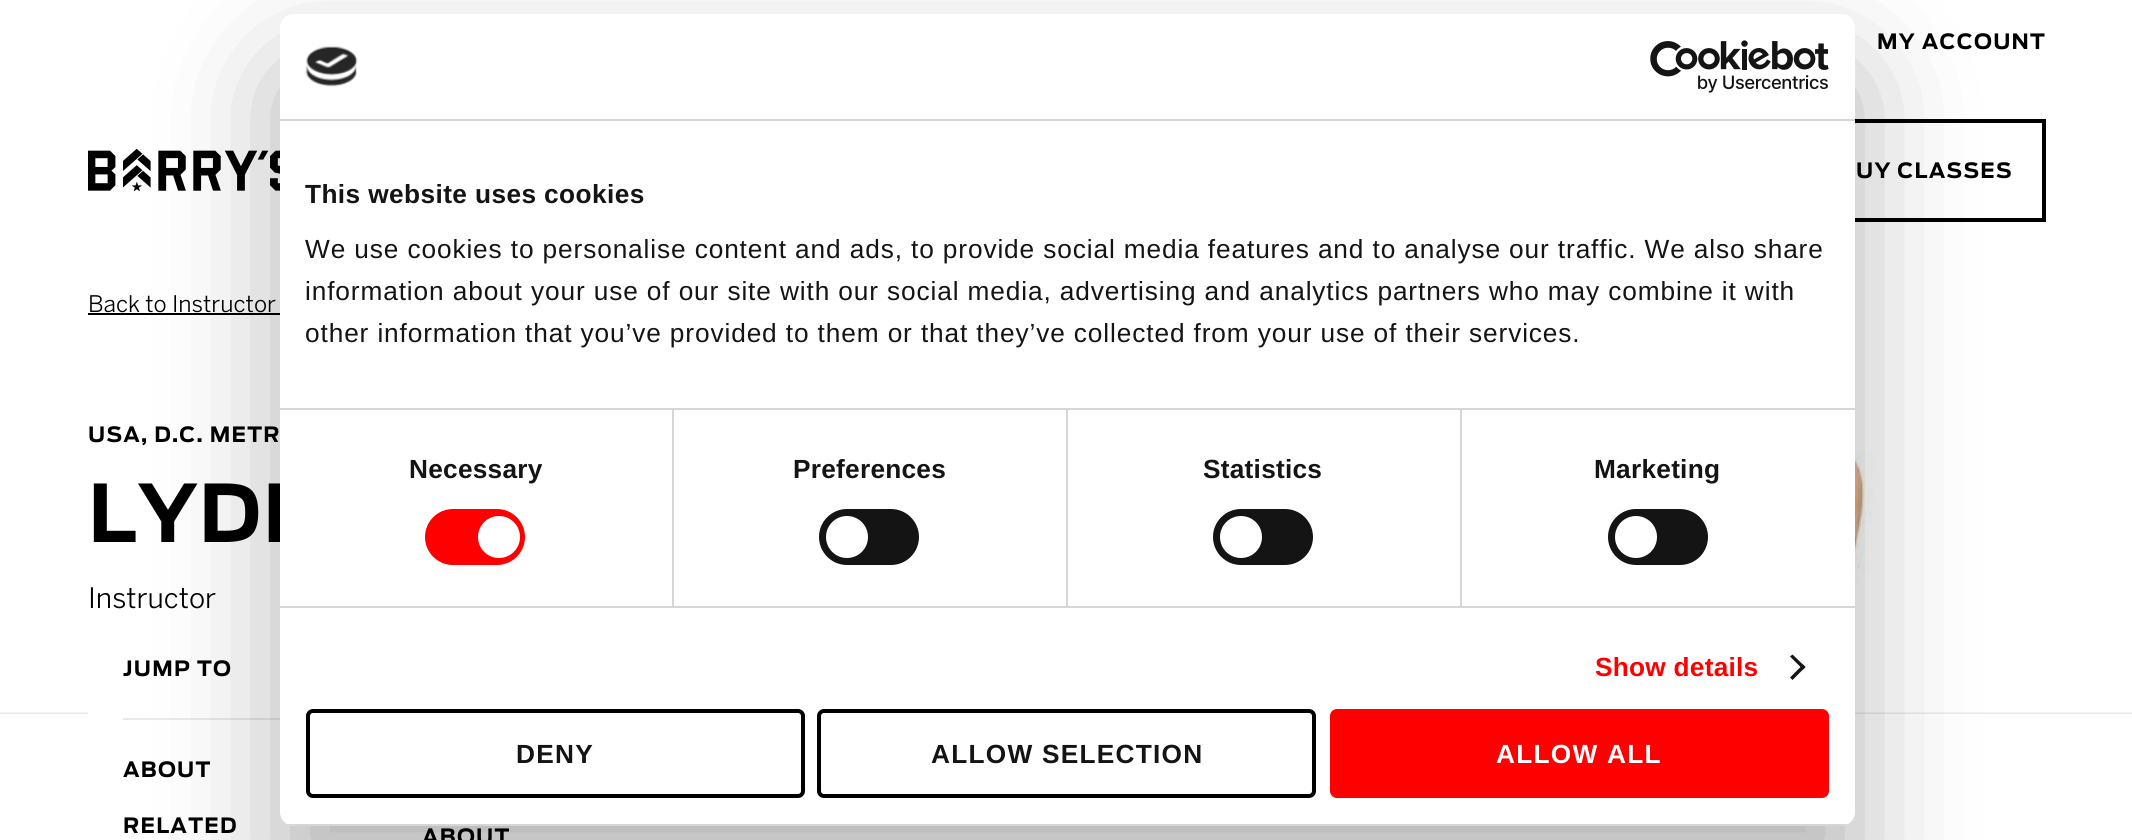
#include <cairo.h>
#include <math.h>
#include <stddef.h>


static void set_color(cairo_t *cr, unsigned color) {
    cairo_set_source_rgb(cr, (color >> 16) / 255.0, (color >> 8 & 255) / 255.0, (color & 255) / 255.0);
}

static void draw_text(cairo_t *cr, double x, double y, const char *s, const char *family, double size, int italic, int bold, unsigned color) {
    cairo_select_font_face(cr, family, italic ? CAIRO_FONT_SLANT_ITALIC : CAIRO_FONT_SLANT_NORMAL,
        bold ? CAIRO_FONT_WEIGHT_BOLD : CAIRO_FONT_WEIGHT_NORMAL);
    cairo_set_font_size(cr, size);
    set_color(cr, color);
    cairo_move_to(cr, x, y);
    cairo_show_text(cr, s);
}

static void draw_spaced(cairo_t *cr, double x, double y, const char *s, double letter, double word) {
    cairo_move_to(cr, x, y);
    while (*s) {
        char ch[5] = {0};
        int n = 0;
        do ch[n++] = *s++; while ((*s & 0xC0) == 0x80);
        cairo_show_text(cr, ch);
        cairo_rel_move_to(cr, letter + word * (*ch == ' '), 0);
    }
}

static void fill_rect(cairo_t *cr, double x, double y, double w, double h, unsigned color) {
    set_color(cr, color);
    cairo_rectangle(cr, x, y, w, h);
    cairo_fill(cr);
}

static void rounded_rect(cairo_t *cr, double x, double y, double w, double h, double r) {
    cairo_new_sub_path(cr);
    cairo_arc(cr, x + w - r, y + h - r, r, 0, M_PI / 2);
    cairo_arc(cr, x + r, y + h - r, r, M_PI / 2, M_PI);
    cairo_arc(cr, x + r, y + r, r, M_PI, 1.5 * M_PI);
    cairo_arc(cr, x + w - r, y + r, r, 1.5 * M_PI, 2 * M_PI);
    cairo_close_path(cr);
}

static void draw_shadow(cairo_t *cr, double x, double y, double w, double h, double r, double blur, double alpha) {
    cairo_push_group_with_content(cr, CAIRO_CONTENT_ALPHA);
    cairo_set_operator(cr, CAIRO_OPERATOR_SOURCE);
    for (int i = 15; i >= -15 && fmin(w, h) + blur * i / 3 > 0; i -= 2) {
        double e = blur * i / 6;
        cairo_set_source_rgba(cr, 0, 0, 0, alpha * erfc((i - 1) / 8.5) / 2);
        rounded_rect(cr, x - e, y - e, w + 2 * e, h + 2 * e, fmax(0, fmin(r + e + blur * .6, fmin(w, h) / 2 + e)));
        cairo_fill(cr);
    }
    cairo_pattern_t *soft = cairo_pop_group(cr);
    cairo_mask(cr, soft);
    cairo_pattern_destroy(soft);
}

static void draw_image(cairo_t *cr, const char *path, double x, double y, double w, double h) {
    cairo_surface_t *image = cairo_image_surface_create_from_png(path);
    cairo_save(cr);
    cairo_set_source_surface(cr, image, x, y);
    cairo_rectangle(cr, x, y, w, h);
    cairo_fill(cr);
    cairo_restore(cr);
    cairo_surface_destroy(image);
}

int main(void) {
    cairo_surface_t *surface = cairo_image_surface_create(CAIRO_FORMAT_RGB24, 2132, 840);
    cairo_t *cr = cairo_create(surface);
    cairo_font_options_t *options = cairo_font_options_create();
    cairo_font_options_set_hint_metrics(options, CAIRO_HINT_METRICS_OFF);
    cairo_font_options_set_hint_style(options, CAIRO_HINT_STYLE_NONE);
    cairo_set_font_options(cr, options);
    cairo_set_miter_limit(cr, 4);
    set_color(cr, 0xFFFFFF);
    cairo_paint(cr);
    cairo_select_font_face(cr, "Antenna", CAIRO_FONT_SLANT_NORMAL, CAIRO_FONT_WEIGHT_BOLD);
    cairo_set_font_size(cr, 21);
    set_color(cr, 0x000000);
    draw_spaced(cr, 1877, 49, "MY ACCOUNT", 1.25, 0);
    fill_rect(cr, 0, 712, 2132, 2, 0xE9E9E9);
    draw_image(cr, "assets/img2.png", 0, 133, 2132, 580);
    draw_image(cr, "assets/img1.png", 88, 149, 192, 42);
    cairo_rectangle(cr, 1808, 121, 236, 99);
    set_color(cr, 0x000000);
    cairo_set_line_width(cr, 4);
    cairo_stroke(cr);
    draw_spaced(cr, 1856, 178, "UY CLASSES", 1.25, 0);
    draw_text(cr, 88, 312, "Back to Instructor", "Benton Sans", 22.75, 0, 0, 0x000000);
    fill_rect(cr, 88, 313, 199, 2, 0x000000);
    cairo_select_font_face(cr, "Antenna", CAIRO_FONT_SLANT_NORMAL, CAIRO_FONT_WEIGHT_BOLD);
    cairo_set_font_size(cr, 21);
    draw_spaced(cr, 88, 442, "USA, D.C. METR", 1.25, 0);
    cairo_set_font_size(cr, 79);
    draw_spaced(cr, 88, 542, "LYDI", 1, 0);
    draw_text(cr, 88, 608, "Instructor", "Benton Sans", 28, 0, 0, 0x000000);
    draw_image(cr, "assets/img3.png", 0, 712, 2132, 1);
    fill_rect(cr, 88, 712, 287, 2, 0xFFFFFF);
    fill_rect(cr, 123, 718, 157, 2, 0xE9E9E9);
    cairo_select_font_face(cr, "Antenna", CAIRO_FONT_SLANT_NORMAL, CAIRO_FONT_WEIGHT_BOLD);
    cairo_set_font_size(cr, 21);
    set_color(cr, 0x000000);
    draw_spaced(cr, 123, 676, "JUMP TO", 1.25, 0);
    draw_spaced(cr, 123, 777, "ABOUT", 1.25, 0);
    draw_spaced(cr, 123, 833, "RELATED", 1.25, 0);
    draw_spaced(cr, 422, 844, "ABOUT", 1.25, 0);
    set_color(cr, 0x000000);
    draw_shadow(cr, 280, 70, 1575, 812, 14, 59.5, 0.3);
    set_color(cr, 0xFFFFFF);
    rounded_rect(cr, 280, 14, 1575, 812, 14);
    cairo_fill(cr);
    fill_rect(cr, 280, 119, 1575, 2, 0xD6D6D6);
    draw_image(cr, "assets/img4.png", 305, 46, 53, 41);
    draw_image(cr, "assets/img5.png", 1650, 40, 179, 53);
    fill_rect(cr, 280, 408, 1575, 2, 0xD6D6D6);
    cairo_select_font_face(cr, "Liberation Sans", CAIRO_FONT_SLANT_NORMAL, CAIRO_FONT_WEIGHT_BOLD);
    cairo_set_font_size(cr, 26.25);
    set_color(cr, 0x141414);
    draw_spaced(cr, 305, 203, "This website uses cookies", 0.4, 0);
    cairo_select_font_face(cr, "Liberation Sans", CAIRO_FONT_SLANT_NORMAL, CAIRO_FONT_WEIGHT_NORMAL);
    draw_spaced(cr, 305, 258, "We use cookies to personalise content and ads, to provide social media features and to analyse our traffic. We also share", 0.88, 0);
    draw_spaced(cr, 305, 300, "information about your use of our site with our social media, advertising and analytics partners who may combine it with", 0.88, 0);
    draw_spaced(cr, 305, 342, "other information that you’ve provided to them or that they’ve collected from your use of their services.", 0.88, 0);
    fill_rect(cr, 280, 606, 1575, 2, 0xD6D6D6);
    fill_rect(cr, 672, 410, 2, 196, 0xD6D6D6);
    cairo_select_font_face(cr, "Liberation Sans", CAIRO_FONT_SLANT_NORMAL, CAIRO_FONT_WEIGHT_BOLD);
    set_color(cr, 0x141414);
    draw_spaced(cr, 409, 478, "Necessary", 0.25, 0);
    set_color(cr, 0xFF0000);
    rounded_rect(cr, 425, 509, 100, 56, 28);
    cairo_fill(cr);
    set_color(cr, 0xFFFFFF);
    cairo_arc(cr, 499, 537, 21, 0, 2 * M_PI);
    cairo_fill(cr);
    fill_rect(cr, 1066, 410, 2, 196, 0xD6D6D6);
    set_color(cr, 0x141414);
    draw_spaced(cr, 793, 478, "Preferences", 0.25, 0);
    rounded_rect(cr, 819, 509, 100, 56, 28);
    cairo_fill(cr);
    set_color(cr, 0xFFFFFF);
    cairo_arc(cr, 847, 537, 21, 0, 2 * M_PI);
    cairo_fill(cr);
    fill_rect(cr, 1460, 410, 2, 196, 0xD6D6D6);
    set_color(cr, 0x141414);
    draw_spaced(cr, 1203, 478, "Statistics", 0.25, 0);
    rounded_rect(cr, 1213, 509, 100, 56, 28);
    cairo_fill(cr);
    set_color(cr, 0xFFFFFF);
    cairo_arc(cr, 1241, 537, 21, 0, 2 * M_PI);
    cairo_fill(cr);
    set_color(cr, 0x141414);
    draw_spaced(cr, 1594, 478, "Marketing", 0.25, 0);
    rounded_rect(cr, 1608, 509, 100, 56, 28);
    cairo_fill(cr);
    set_color(cr, 0xFFFFFF);
    cairo_arc(cr, 1636, 537, 21, 0, 2 * M_PI);
    cairo_fill(cr);
    set_color(cr, 0xFF0000);
    draw_spaced(cr, 1595, 676, "Show details", 0.25, 0);
    set_color(cr, 0x141414);
    cairo_new_path(cr);
    cairo_move_to(cr, 1792.5, 654.5);
    cairo_line_to(cr, 1805.5, 667);
    cairo_line_to(cr, 1803, 669.5);
    cairo_line_to(cr, 1790, 656.5);
    cairo_close_path(cr);
    cairo_fill(cr);
    cairo_new_path(cr);
    cairo_move_to(cr, 1803, 664.5);
    cairo_line_to(cr, 1805.5, 667);
    cairo_line_to(cr, 1792.5, 680);
    cairo_line_to(cr, 1790, 677.5);
    cairo_close_path(cr);
    cairo_fill(cr);
    cairo_save(cr);
    rounded_rect(cr, 280, 14, 1575, 812, 14);
    cairo_clip(cr);
    fill_rect(cr, 280, 824, 1575, 2, 0xD6D6D6);
    cairo_restore(cr);
    rounded_rect(cr, 308, 711, 495, 85, 5);
    set_color(cr, 0x000000);
    cairo_stroke(cr);
    set_color(cr, 0x141414);
    draw_spaced(cr, 516, 763, "DENY", 1.25, 0);
    rounded_rect(cr, 819, 711, 495, 85, 5);
    set_color(cr, 0x000000);
    cairo_stroke(cr);
    set_color(cr, 0x141414);
    draw_spaced(cr, 931, 763, "ALLOW SELECTION", 1.25, 0);
    set_color(cr, 0xFF0000);
    rounded_rect(cr, 1332, 711, 495, 85, 5);
    cairo_fill_preserve(cr);
    cairo_stroke(cr);
    set_color(cr, 0xFFFFFF);
    draw_spaced(cr, 1496, 763, "ALLOW ALL", 1.25, 0);
    cairo_surface_write_to_png(surface, "output.png");
    cairo_font_options_destroy(options);
    cairo_destroy(cr);
    cairo_surface_destroy(surface);
    return 0;
}
